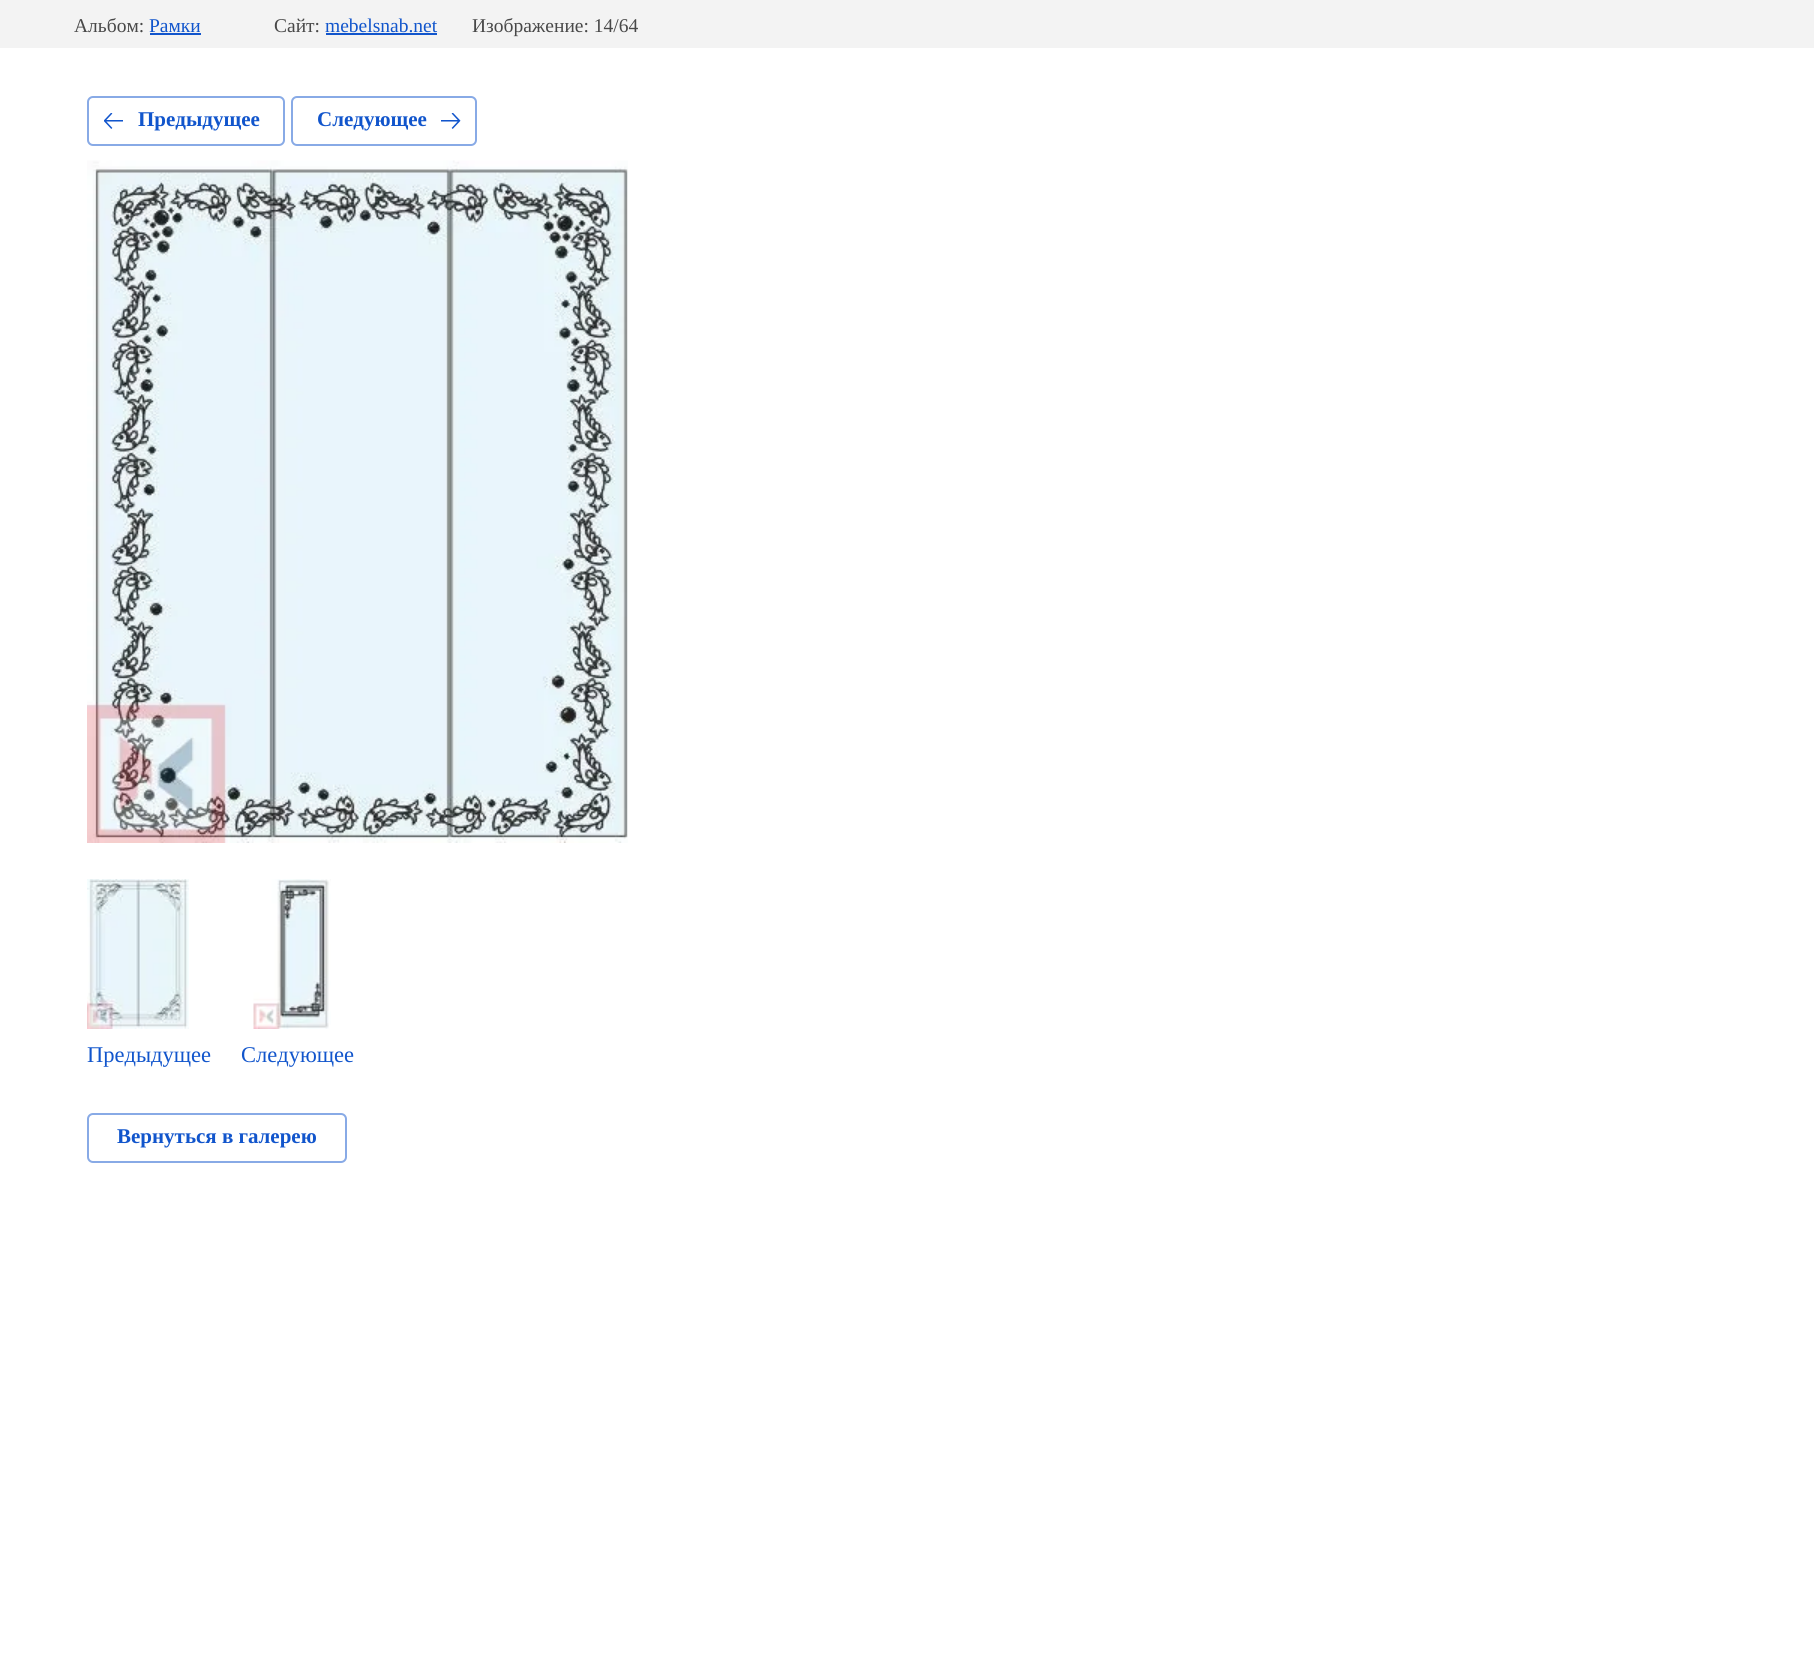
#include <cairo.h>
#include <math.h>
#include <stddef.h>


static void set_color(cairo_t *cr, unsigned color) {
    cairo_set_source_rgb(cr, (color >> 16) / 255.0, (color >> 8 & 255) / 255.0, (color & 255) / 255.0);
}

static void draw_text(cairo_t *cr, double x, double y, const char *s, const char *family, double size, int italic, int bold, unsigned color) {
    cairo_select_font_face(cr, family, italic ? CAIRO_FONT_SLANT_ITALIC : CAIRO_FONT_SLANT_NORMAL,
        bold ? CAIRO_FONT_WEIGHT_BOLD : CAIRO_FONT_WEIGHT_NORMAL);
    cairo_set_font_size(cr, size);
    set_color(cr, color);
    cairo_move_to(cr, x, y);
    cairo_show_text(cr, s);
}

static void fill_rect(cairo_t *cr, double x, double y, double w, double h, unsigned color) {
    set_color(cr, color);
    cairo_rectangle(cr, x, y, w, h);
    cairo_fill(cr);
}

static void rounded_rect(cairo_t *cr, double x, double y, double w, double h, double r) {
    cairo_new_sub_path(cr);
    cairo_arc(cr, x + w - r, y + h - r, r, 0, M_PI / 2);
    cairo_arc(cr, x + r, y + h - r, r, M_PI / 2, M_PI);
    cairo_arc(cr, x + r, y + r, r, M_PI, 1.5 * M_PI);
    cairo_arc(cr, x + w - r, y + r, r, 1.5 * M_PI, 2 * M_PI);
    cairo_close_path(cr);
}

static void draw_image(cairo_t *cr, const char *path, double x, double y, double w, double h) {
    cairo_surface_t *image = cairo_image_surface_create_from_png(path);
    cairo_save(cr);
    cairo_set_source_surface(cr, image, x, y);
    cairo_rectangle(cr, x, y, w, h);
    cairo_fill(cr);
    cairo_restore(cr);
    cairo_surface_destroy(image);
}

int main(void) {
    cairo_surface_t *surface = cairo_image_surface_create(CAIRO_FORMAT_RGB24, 1814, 1665);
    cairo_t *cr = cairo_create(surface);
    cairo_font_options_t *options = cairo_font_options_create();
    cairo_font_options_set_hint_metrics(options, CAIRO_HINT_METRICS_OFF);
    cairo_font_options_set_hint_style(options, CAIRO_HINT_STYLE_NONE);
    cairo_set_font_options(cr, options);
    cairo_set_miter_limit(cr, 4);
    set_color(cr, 0xFFFFFF);
    cairo_paint(cr);
    fill_rect(cr, 0, 0, 1814, 48, 0xF3F3F3);
    draw_text(cr, 74, 32, "Альбом:", "Liberation Serif", 19.5, 0, 0, 0x484848);
    draw_text(cr, 149, 32, "Рамки", "Liberation Serif", 19.5, 0, 0, 0x1155CC);
    fill_rect(cr, 150, 33, 51, 2, 0x1155CC);
    draw_text(cr, 274, 32, "Сайт:", "Liberation Serif", 19.5, 0, 0, 0x484848);
    draw_text(cr, 325, 32, "mebelsnab.net", "Liberation Serif", 19.5, 0, 0, 0x1155CC);
    fill_rect(cr, 326, 33, 111, 2, 0x1155CC);
    draw_text(cr, 472, 32, "Изображение: 14/64", "Liberation Serif", 19.5, 0, 0, 0x484848);
    rounded_rect(cr, 88, 97, 196, 48, 5);
    set_color(cr, 0x88AAE6);
    cairo_stroke(cr);
    draw_image(cr, "assets/img1.png", 104, 113, 19, 16);
    draw_text(cr, 138, 126, "Предыдущее", "Liberation Serif", 21, 0, 1, 0x1155CC);
    rounded_rect(cr, 292, 97, 184, 48, 5);
    set_color(cr, 0x88AAE6);
    cairo_stroke(cr);
    draw_text(cr, 317, 126, "Следующее", "Liberation Serif", 21, 0, 1, 0x1155CC);
    draw_image(cr, "assets/img2.png", 441, 113, 20, 16);
    draw_image(cr, "assets/img3.png", 87, 160, 541, 683);
    draw_image(cr, "assets/img4.png", 87, 879, 102, 150);
    draw_text(cr, 87, 1062, "Предыдущее", "Liberation Serif", 22.5, 0, 0, 0x1155CC);
    draw_image(cr, "assets/img5.png", 253, 879, 78, 150);
    draw_text(cr, 241, 1062, "Следующее", "Liberation Serif", 22.5, 0, 0, 0x1155CC);
    rounded_rect(cr, 88, 1114, 258, 48, 5);
    set_color(cr, 0x88AAE6);
    cairo_stroke(cr);
    draw_text(cr, 117, 1143, "Вернуться в галерею", "Liberation Serif", 21, 0, 1, 0x1155CC);
    cairo_surface_write_to_png(surface, "output.png");
    cairo_font_options_destroy(options);
    cairo_destroy(cr);
    cairo_surface_destroy(surface);
    return 0;
}
